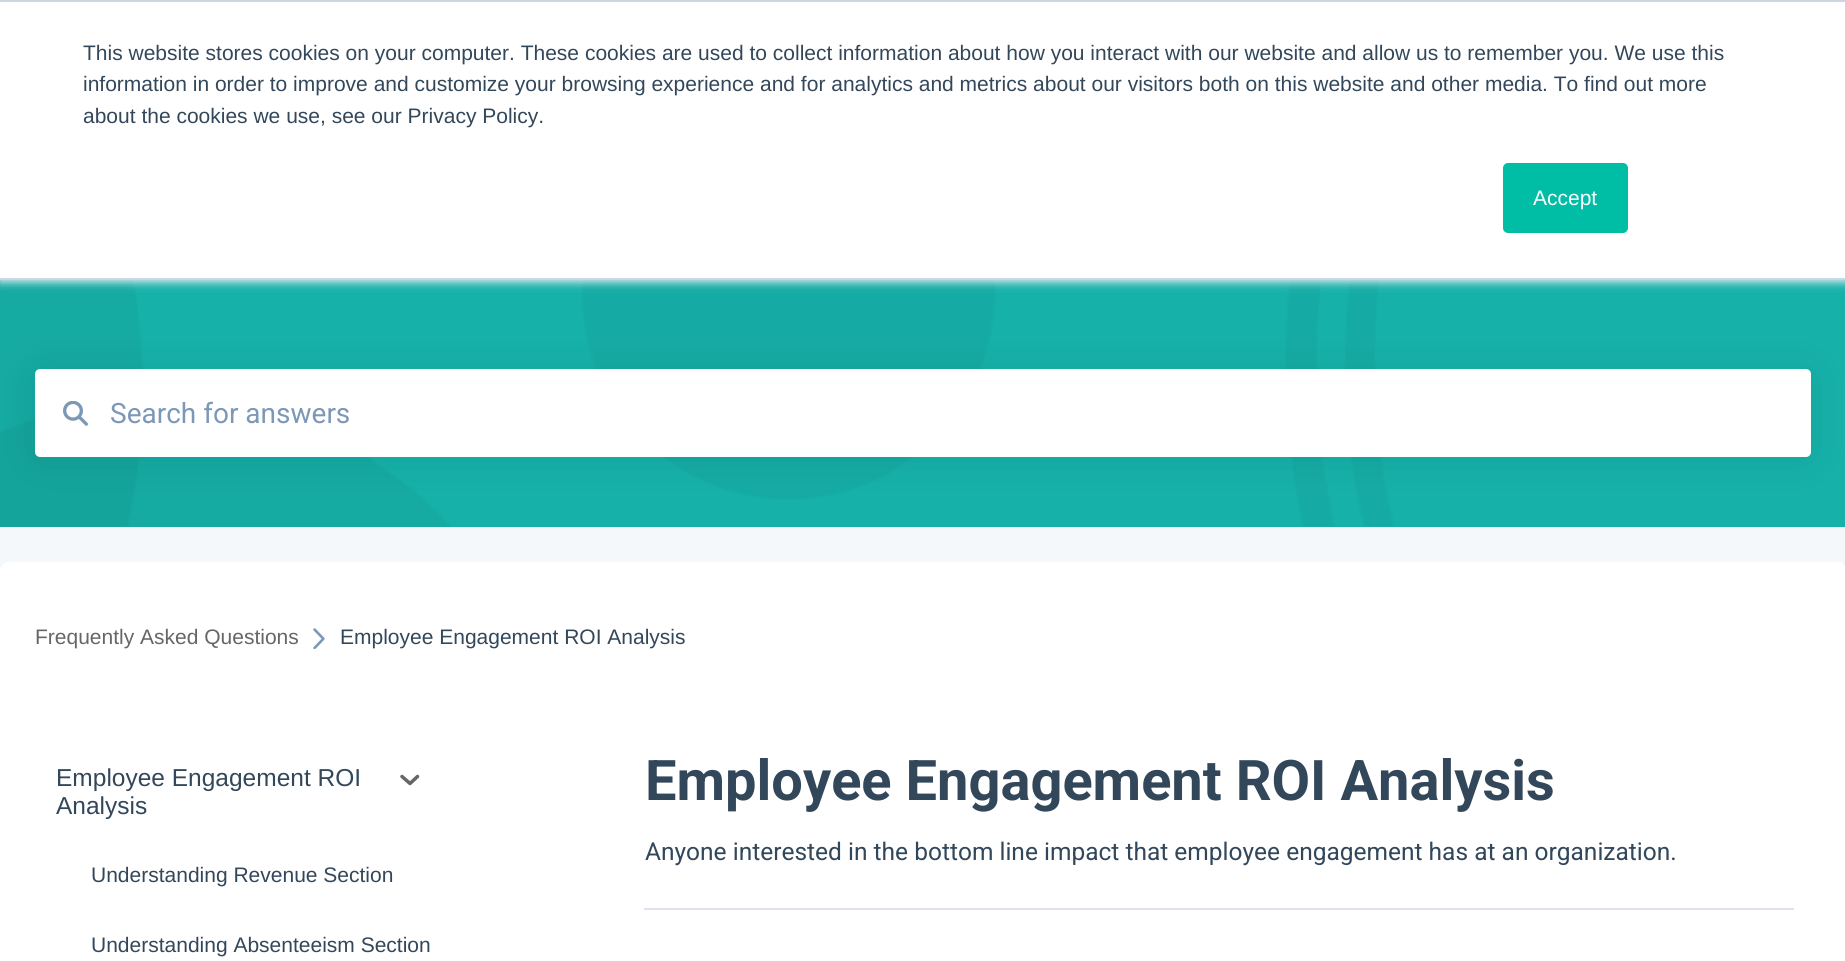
#include <cairo.h>
#include <math.h>
#include <stddef.h>


static void set_color(cairo_t *cr, unsigned color) {
    cairo_set_source_rgb(cr, (color >> 16) / 255.0, (color >> 8 & 255) / 255.0, (color & 255) / 255.0);
}

static void draw_text(cairo_t *cr, double x, double y, const char *s, const char *family, double size, int italic, int bold, unsigned color) {
    cairo_select_font_face(cr, family, italic ? CAIRO_FONT_SLANT_ITALIC : CAIRO_FONT_SLANT_NORMAL,
        bold ? CAIRO_FONT_WEIGHT_BOLD : CAIRO_FONT_WEIGHT_NORMAL);
    cairo_set_font_size(cr, size);
    set_color(cr, color);
    cairo_move_to(cr, x, y);
    cairo_show_text(cr, s);
}

static void fill_rect(cairo_t *cr, double x, double y, double w, double h, unsigned color) {
    set_color(cr, color);
    cairo_rectangle(cr, x, y, w, h);
    cairo_fill(cr);
}

static void rounded_rect(cairo_t *cr, double x, double y, double w, double h, double r) {
    cairo_new_sub_path(cr);
    cairo_arc(cr, x + w - r, y + h - r, r, 0, M_PI / 2);
    cairo_arc(cr, x + r, y + h - r, r, M_PI / 2, M_PI);
    cairo_arc(cr, x + r, y + r, r, M_PI, 1.5 * M_PI);
    cairo_arc(cr, x + w - r, y + r, r, 1.5 * M_PI, 2 * M_PI);
    cairo_close_path(cr);
}

static void draw_shadow(cairo_t *cr, double x, double y, double w, double h, double r, double blur, double alpha) {
    cairo_push_group_with_content(cr, CAIRO_CONTENT_ALPHA);
    cairo_set_operator(cr, CAIRO_OPERATOR_SOURCE);
    for (int i = 15; i >= -15 && fmin(w, h) + blur * i / 3 > 0; i -= 2) {
        double e = blur * i / 6;
        cairo_set_source_rgba(cr, 0, 0, 0, alpha * erfc((i - 1) / 8.5) / 2);
        rounded_rect(cr, x - e, y - e, w + 2 * e, h + 2 * e, fmax(0, fmin(r + e + blur * .6, fmin(w, h) / 2 + e)));
        cairo_fill(cr);
    }
    cairo_pattern_t *soft = cairo_pop_group(cr);
    cairo_mask(cr, soft);
    cairo_pattern_destroy(soft);
}

static void draw_image(cairo_t *cr, const char *path, double x, double y, double w, double h) {
    cairo_surface_t *image = cairo_image_surface_create_from_png(path);
    cairo_save(cr);
    cairo_set_source_surface(cr, image, x, y);
    cairo_rectangle(cr, x, y, w, h);
    cairo_fill(cr);
    cairo_restore(cr);
    cairo_surface_destroy(image);
}

int main(void) {
    cairo_surface_t *surface = cairo_image_surface_create(CAIRO_FORMAT_RGB24, 1845, 961);
    cairo_t *cr = cairo_create(surface);
    cairo_font_options_t *options = cairo_font_options_create();
    cairo_font_options_set_hint_metrics(options, CAIRO_HINT_METRICS_OFF);
    cairo_font_options_set_hint_style(options, CAIRO_HINT_STYLE_NONE);
    cairo_set_font_options(cr, options);
    cairo_set_miter_limit(cr, 4);
    set_color(cr, 0xF5F8FA);
    cairo_paint(cr);
    fill_rect(cr, 0, 280, 1845, 247, 0x16B1A9);
    draw_image(cr, "assets/img1.png", 0, 280, 1394, 247);
    set_color(cr, 0xEAF0F6);
    draw_shadow(cr, 0, 2, 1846, 280, 0, 4.5, 1);
    fill_rect(cr, 0, 2, 1845, 276, 0xFFFFFF);
    fill_rect(cr, 0, 0, 1845, 2, 0xCBD6E2);
    fill_rect(cr, 0, 278, 1845, 2, 0xCBD6E2);
    draw_text(cr, 83, 60, "This website stores cookies on your computer. These cookies are used to collect information about how you interact with our website and allow us to remember you. We use this", "Liberation Sans", 21, 0, 0, 0x33475B);
    draw_text(cr, 83, 91, "information in order to improve and customize your browsing experience and for analytics and metrics about our visitors both on this website and other media. To find out more", "Liberation Sans", 21, 0, 0, 0x33475B);
    draw_text(cr, 83, 123, "about the cookies we use, see our Privacy Policy.", "Liberation Sans", 21, 0, 0, 0x33475B);
    set_color(cr, 0x00BDA5);
    rounded_rect(cr, 1504, 164, 123, 68, 4);
    cairo_fill_preserve(cr);
    cairo_stroke(cr);
    draw_text(cr, 1533, 205, "Accept", "Liberation Sans", 21, 0, 0, 0xFFFFFF);
    set_color(cr, 0x000000);
    draw_shadow(cr, 35, 371, 1776, 88, 5, 21, 0.08);
    set_color(cr, 0xFFFFFF);
    rounded_rect(cr, 35, 369, 1776, 88, 5);
    cairo_fill(cr);
    draw_image(cr, "assets/img2.png", 63, 401, 25, 25);
    draw_text(cr, 110, 423, "Search for answers", "Roboto", 28, 0, 0, 0x7C98B6);
    set_color(cr, 0xFFFFFF);
    rounded_rect(cr, 0, 562, 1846, 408, 9);
    cairo_fill(cr);
    draw_text(cr, 35, 644, "Frequently Asked Questions", "Liberation Sans", 21, 0, 0, 0x666666);
    draw_image(cr, "assets/img3.png", 313, 628, 12, 21);
    draw_text(cr, 340, 644, "Employee Engagement ROI Analysis", "Liberation Sans", 21, 0, 0, 0x33475B);
    draw_text(cr, 56, 786, "Employee Engagement ROI", "Liberation Sans", 24.5, 0, 0, 0x33475B);
    draw_text(cr, 56, 814, "Analysis", "Liberation Sans", 24.5, 0, 0, 0x33475B);
    cairo_new_path(cr);
    cairo_move_to(cr, 417.5, 776.5);
    cairo_line_to(cr, 410, 783.5);
    cairo_line_to(cr, 402, 776.5);
    set_color(cr, 0x666666);
    cairo_set_line_width(cr, 3.5);
    cairo_set_line_cap(cr, CAIRO_LINE_CAP_ROUND);
    cairo_set_line_join(cr, CAIRO_LINE_JOIN_ROUND);
    cairo_stroke(cr);
    draw_text(cr, 91, 882, "Understanding Revenue Section", "Liberation Sans", 21, 0, 0, 0x33475B);
    draw_text(cr, 91, 952, "Understanding Absenteeism Section", "Liberation Sans", 21, 0, 0, 0x33475B);
    draw_text(cr, 645, 800, "Employee Engagement ROI Analysis", "Roboto", 56, 0, 1, 0x33475B);
    fill_rect(cr, 644, 908, 1150, 2, 0xDFE3EB);
    draw_text(cr, 645, 860, "Anyone interested in the bottom line impact that employee engagement has at an organization.", "Roboto", 24.5, 0, 0, 0x33475B);
    cairo_surface_write_to_png(surface, "output.png");
    cairo_font_options_destroy(options);
    cairo_destroy(cr);
    cairo_surface_destroy(surface);
    return 0;
}
